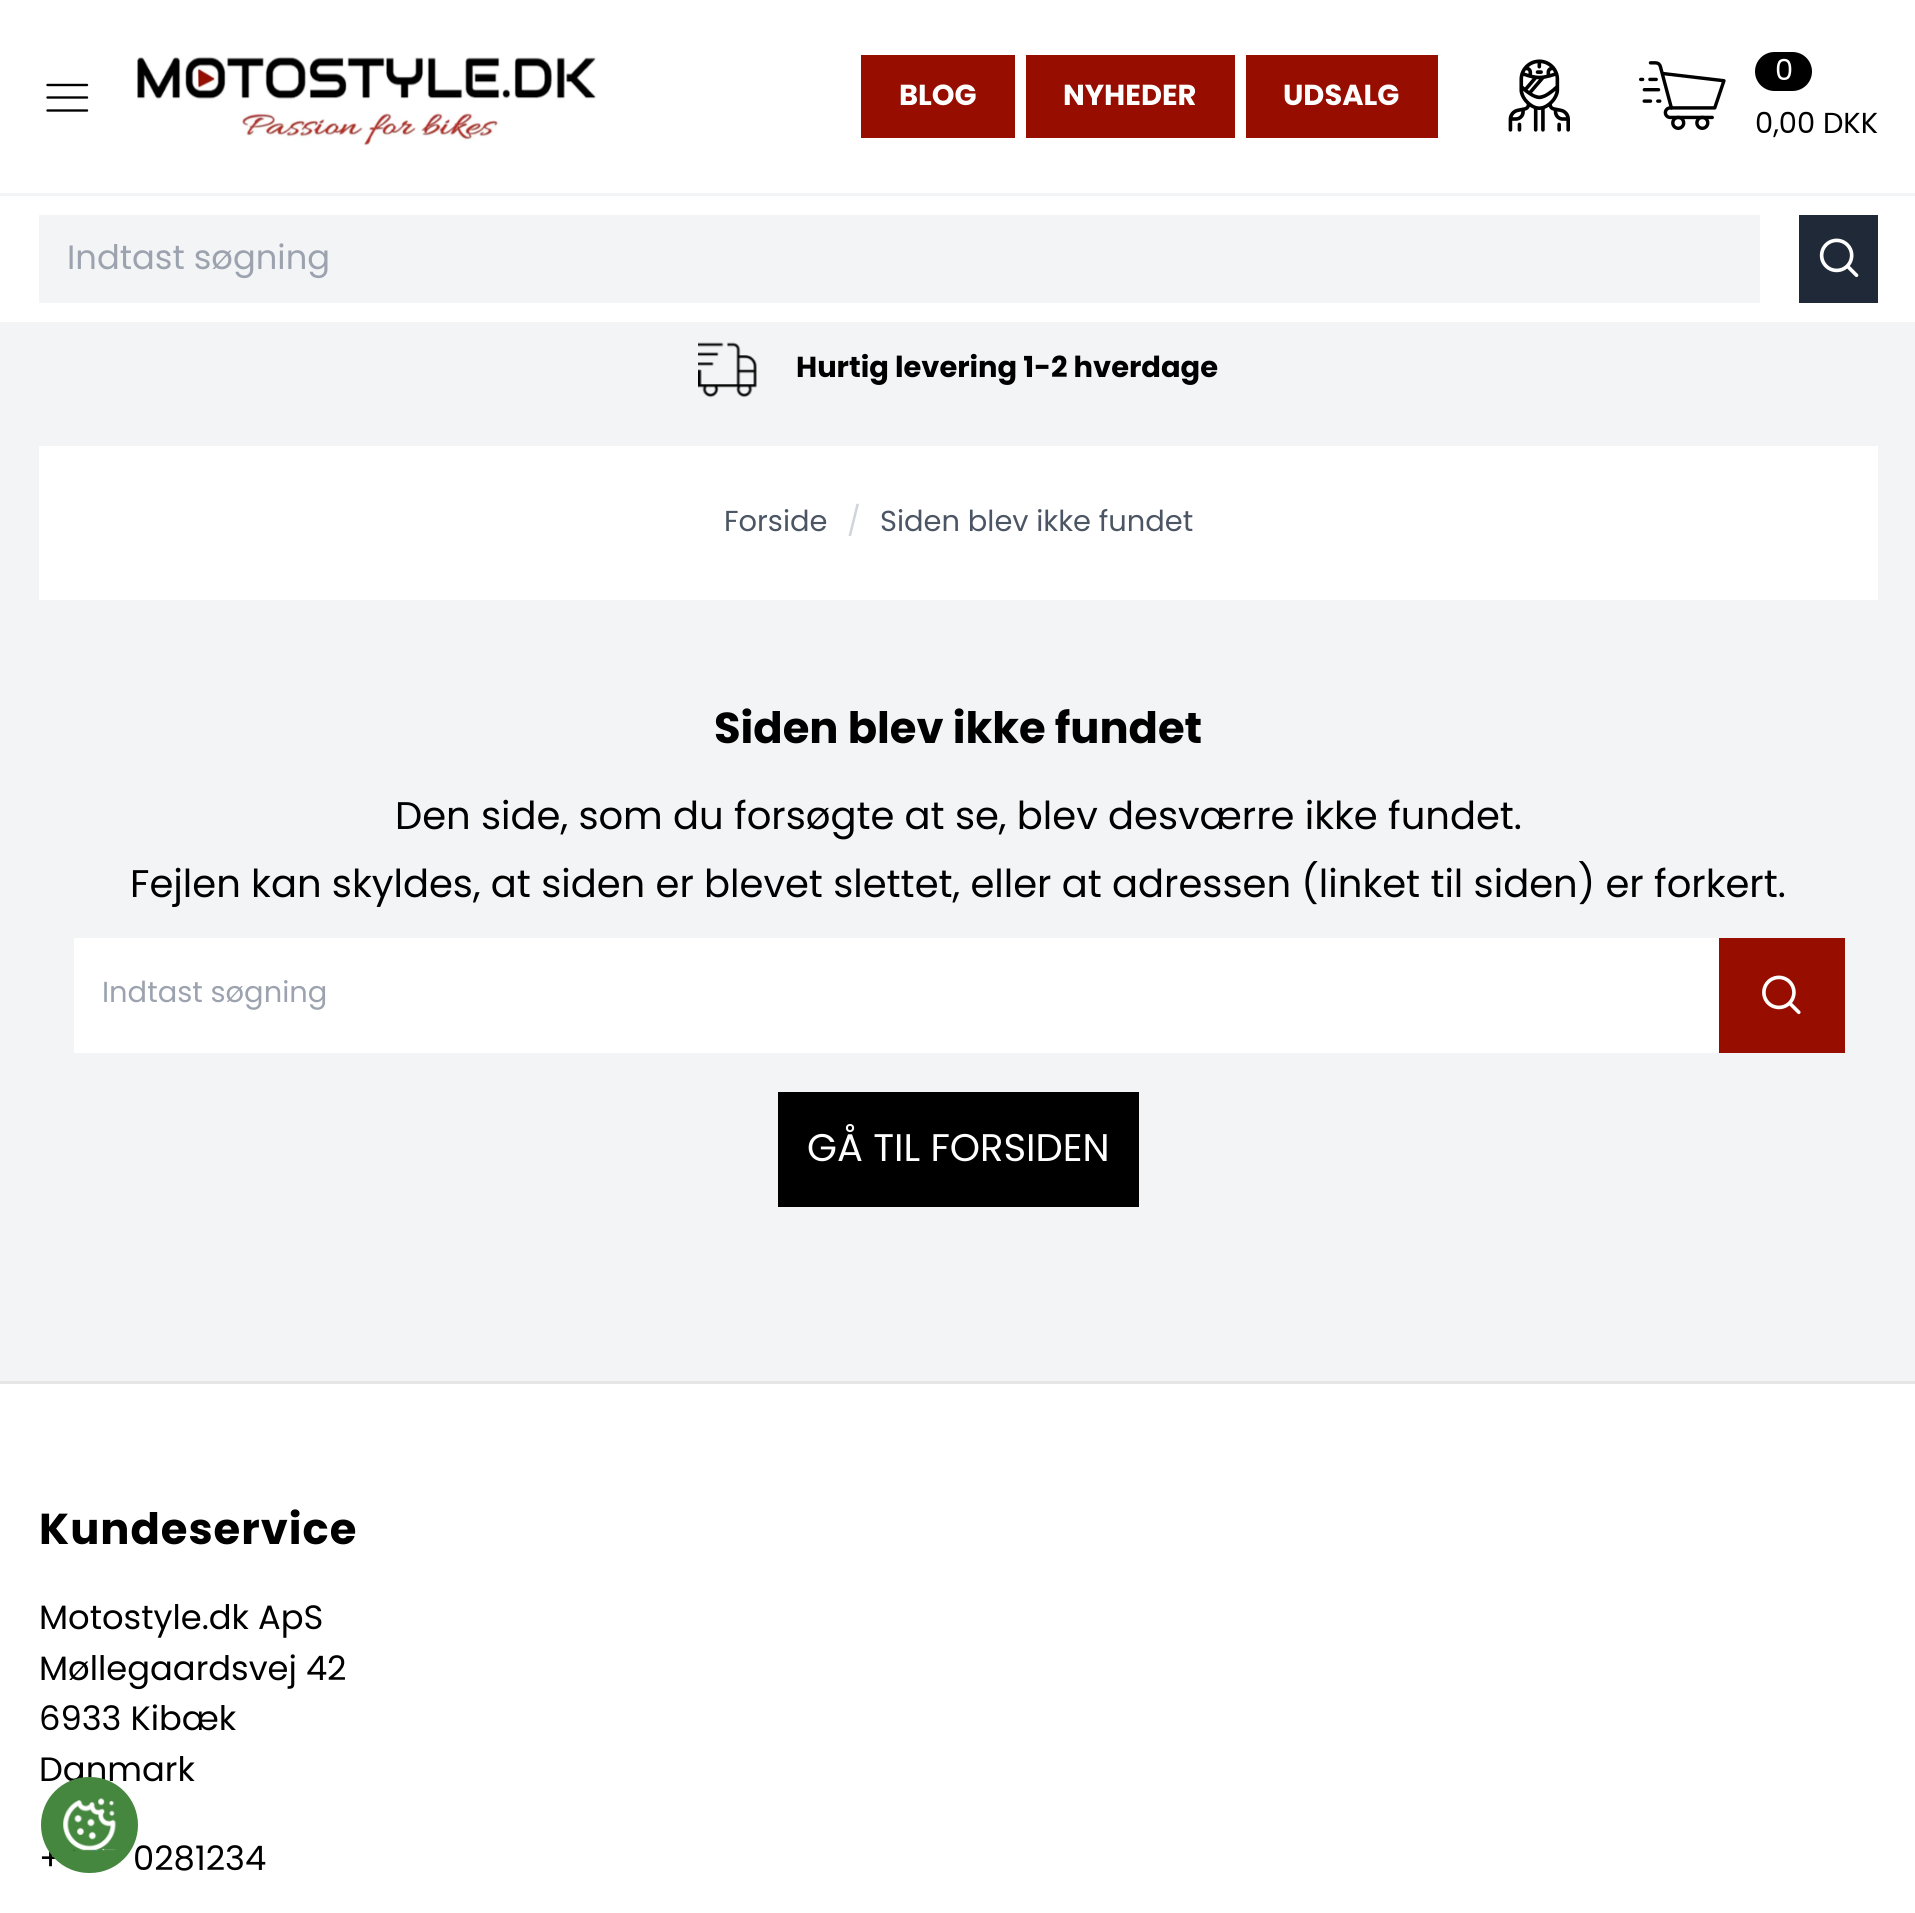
#include <cairo.h>
#include <math.h>
#include <stddef.h>


static void set_color(cairo_t *cr, unsigned color) {
    cairo_set_source_rgb(cr, (color >> 16) / 255.0, (color >> 8 & 255) / 255.0, (color & 255) / 255.0);
}

static void draw_text(cairo_t *cr, double x, double y, const char *s, const char *family, double size, int italic, int bold, unsigned color) {
    cairo_select_font_face(cr, family, italic ? CAIRO_FONT_SLANT_ITALIC : CAIRO_FONT_SLANT_NORMAL,
        bold ? CAIRO_FONT_WEIGHT_BOLD : CAIRO_FONT_WEIGHT_NORMAL);
    cairo_set_font_size(cr, size);
    set_color(cr, color);
    cairo_move_to(cr, x, y);
    cairo_show_text(cr, s);
}

static void draw_spaced(cairo_t *cr, double x, double y, const char *s, double letter, double word) {
    cairo_move_to(cr, x, y);
    while (*s) {
        char ch[5] = {0};
        int n = 0;
        do ch[n++] = *s++; while ((*s & 0xC0) == 0x80);
        cairo_show_text(cr, ch);
        cairo_rel_move_to(cr, letter + word * (*ch == ' '), 0);
    }
}

static void fill_rect(cairo_t *cr, double x, double y, double w, double h, unsigned color) {
    set_color(cr, color);
    cairo_rectangle(cr, x, y, w, h);
    cairo_fill(cr);
}

static void rounded_rect(cairo_t *cr, double x, double y, double w, double h, double r) {
    cairo_new_sub_path(cr);
    cairo_arc(cr, x + w - r, y + h - r, r, 0, M_PI / 2);
    cairo_arc(cr, x + r, y + h - r, r, M_PI / 2, M_PI);
    cairo_arc(cr, x + r, y + r, r, M_PI, 1.5 * M_PI);
    cairo_arc(cr, x + w - r, y + r, r, 1.5 * M_PI, 2 * M_PI);
    cairo_close_path(cr);
}

static void draw_image(cairo_t *cr, const char *path, double x, double y, double w, double h) {
    cairo_surface_t *image = cairo_image_surface_create_from_png(path);
    cairo_save(cr);
    cairo_set_source_surface(cr, image, x, y);
    cairo_rectangle(cr, x, y, w, h);
    cairo_fill(cr);
    cairo_restore(cr);
    cairo_surface_destroy(image);
}

int main(void) {
    cairo_surface_t *surface = cairo_image_surface_create(CAIRO_FORMAT_RGB24, 1915, 1913);
    cairo_t *cr = cairo_create(surface);
    cairo_font_options_t *options = cairo_font_options_create();
    cairo_font_options_set_hint_metrics(options, CAIRO_HINT_METRICS_OFF);
    cairo_font_options_set_hint_style(options, CAIRO_HINT_STYLE_NONE);
    cairo_set_font_options(cr, options);
    cairo_set_miter_limit(cr, 4);
    set_color(cr, 0xFFFFFF);
    cairo_paint(cr);
    fill_rect(cr, 0, 193, 1915, 3, 0xF3F4F6);
    cairo_new_path(cr);
    cairo_move_to(cr, 47.5, 85);
    cairo_line_to(cr, 87, 85);
    cairo_move_to(cr, 47.5, 97.5);
    cairo_line_to(cr, 87, 97.5);
    cairo_move_to(cr, 47.5, 110.5);
    cairo_line_to(cr, 87, 110.5);
    set_color(cr, 0x000000);
    cairo_set_line_width(cr, 2.4);
    cairo_set_line_cap(cr, CAIRO_LINE_CAP_ROUND);
    cairo_set_line_join(cr, CAIRO_LINE_JOIN_ROUND);
    cairo_stroke(cr);
    draw_image(cr, "assets/img1.png", 136, 56, 460, 90);
    fill_rect(cr, 861, 55, 154, 83, 0x970E01);
    draw_text(cr, 899, 105, "BLOG", "Poppins", 28.9, 0, 1, 0xFFFFFF);
    fill_rect(cr, 1026, 55, 209, 83, 0x970E01);
    draw_text(cr, 1063, 105, "NYHEDER", "Poppins", 28.9, 0, 1, 0xFFFFFF);
    fill_rect(cr, 1246, 55, 192, 83, 0x970E01);
    draw_text(cr, 1283, 105, "UDSALG", "Poppins", 28.9, 0, 1, 0xFFFFFF);
    draw_image(cr, "assets/img2.png", 1508, 59, 62, 73);
    draw_image(cr, "assets/img3.png", 1639, 61, 87, 69);
    set_color(cr, 0x000000);
    rounded_rect(cr, 1755, 52, 57, 39, 19.5);
    cairo_fill(cr);
    draw_text(cr, 1775, 80, "0", "Poppins", 28.9, 0, 0, 0xFFFFFF);
    draw_text(cr, 1755, 133, "0,00 DKK", "Poppins", 28.9, 0, 0, 0x000000);
    fill_rect(cr, 39, 215, 1721, 88, 0xF3F4F6);
    draw_text(cr, 67, 269, "Indtast søgning", "Poppins", 33.75, 0, 0, 0x9CA3AF);
    fill_rect(cr, 1799, 215, 79, 88, 0x1F2937);
    draw_image(cr, "assets/img4.png", 1819, 238, 40, 40);
    fill_rect(cr, 0, 322, 1915, 1059, 0xF3F4F6);
    draw_image(cr, "assets/img5.png", 698, 342, 59, 56);
    draw_text(cr, 796, 377, "Hurtig levering 1-2 hverdage", "Poppins", 28.9, 0, 1, 0x000000);
    fill_rect(cr, 39, 446, 1839, 154, 0xFFFFFF);
    draw_text(cr, 724, 531, "Forside", "Poppins", 28.9, 0, 0, 0x4B5563);
    draw_text(cr, 847, 531, "/", "Poppins", 28.9, 0, 0, 0xD1D5DB);
    draw_text(cr, 880, 531, "Siden blev ikke fundet", "Poppins", 28.9, 0, 0, 0x4B5563);
    draw_text(cr, 714, 743, "Siden blev ikke fundet", "Poppins", 43.25, 0, 1, 0x000000);
    draw_text(cr, 395, 829, "Den side, som du forsøgte at se, blev desværre ikke fundet.", "Poppins", 38.5, 0, 0, 0x000000);
    draw_text(cr, 130, 897, "Fejlen kan skyldes, at siden er blevet slettet, eller at adressen (linket til siden) er forkert.", "Poppins", 38.5, 0, 0, 0x000000);
    fill_rect(cr, 74, 938, 1645, 115, 0xFFFFFF);
    draw_text(cr, 102, 1002, "Indtast søgning", "Poppins", 28.9, 0, 0, 0x9CA3AF);
    fill_rect(cr, 1719, 938, 126, 115, 0x970E01);
    draw_image(cr, "assets/img6.png", 1762, 975, 39, 40);
    fill_rect(cr, 778, 1092, 361, 115, 0x000000);
    draw_text(cr, 807, 1161, "GÅ TIL FORSIDEN", "Poppins", 38.5, 0, 0, 0xFFFFFF);
    fill_rect(cr, 0, 1381, 1915, 3, 0xE6E6E6);
    cairo_select_font_face(cr, "Poppins", CAIRO_FONT_SLANT_NORMAL, CAIRO_FONT_WEIGHT_BOLD);
    cairo_set_font_size(cr, 43.25);
    set_color(cr, 0x000000);
    draw_spaced(cr, 39, 1544, "Kundeservice", 1, 0);
    draw_text(cr, 39, 1629, "Motostyle.dk ApS", "Poppins", 33.75, 0, 0, 0x000000);
    draw_text(cr, 39, 1680, "Møllegaardsvej 42", "Poppins", 33.75, 0, 0, 0x000000);
    draw_text(cr, 39, 1730, "6933 Kibæk", "Poppins", 33.75, 0, 0, 0x000000);
    draw_text(cr, 39, 1781, "Danmark", "Poppins", 33.75, 0, 0, 0x000000);
    draw_text(cr, 39, 1870, "+", "Poppins", 33.75, 0, 0, 0x000000);
    draw_text(cr, 133, 1870, "0281234", "Poppins", 33.75, 0, 0, 0x000000);
    set_color(cr, 0x45873F);
    rounded_rect(cr, 41, 1777, 97, 96, 48);
    cairo_fill(cr);
    draw_image(cr, "assets/img7.png", 63, 1798, 54, 54);
    cairo_surface_write_to_png(surface, "output.png");
    cairo_font_options_destroy(options);
    cairo_destroy(cr);
    cairo_surface_destroy(surface);
    return 0;
}
